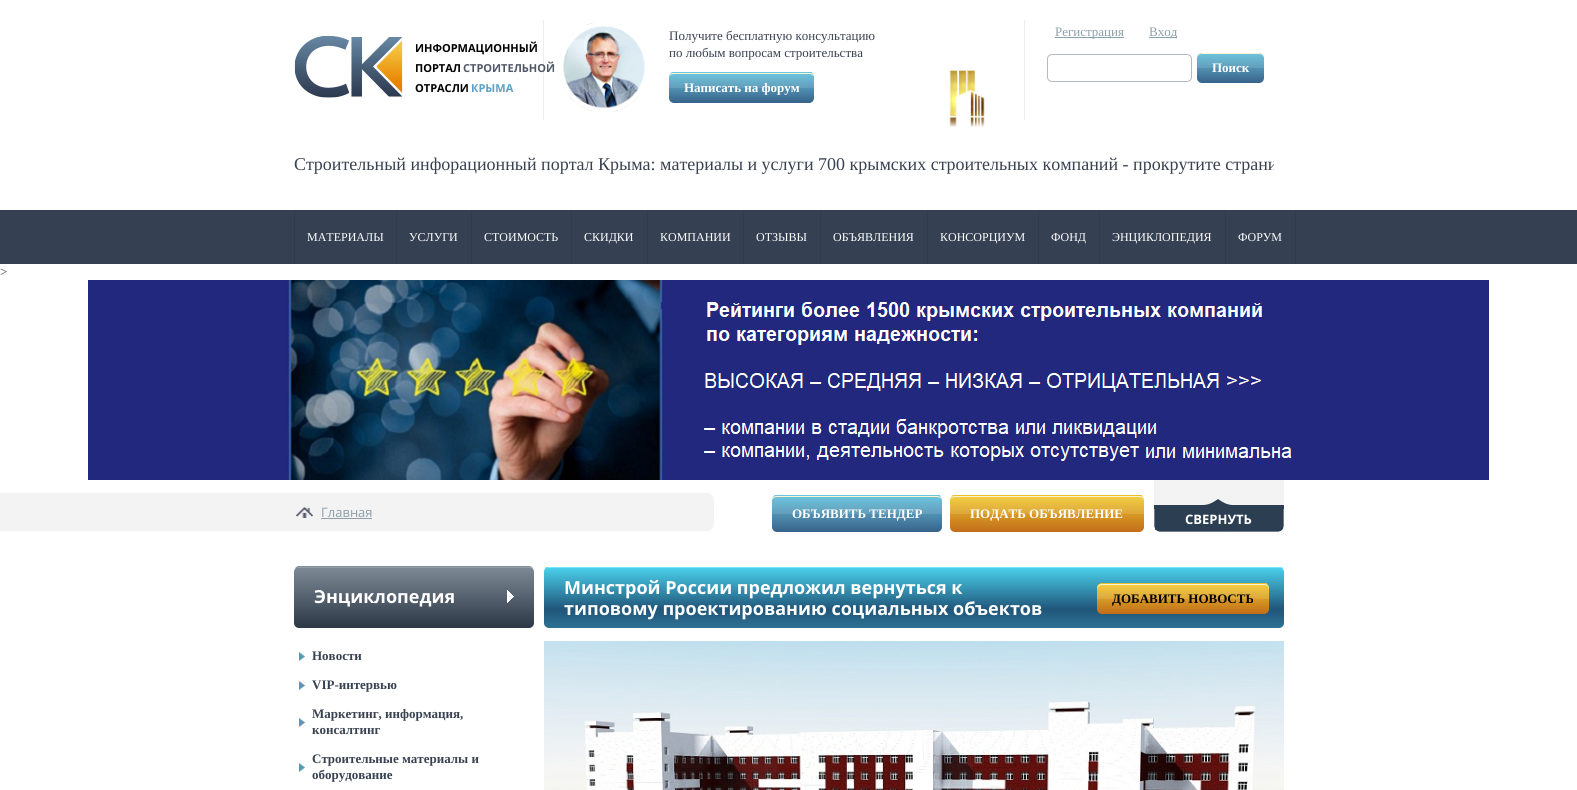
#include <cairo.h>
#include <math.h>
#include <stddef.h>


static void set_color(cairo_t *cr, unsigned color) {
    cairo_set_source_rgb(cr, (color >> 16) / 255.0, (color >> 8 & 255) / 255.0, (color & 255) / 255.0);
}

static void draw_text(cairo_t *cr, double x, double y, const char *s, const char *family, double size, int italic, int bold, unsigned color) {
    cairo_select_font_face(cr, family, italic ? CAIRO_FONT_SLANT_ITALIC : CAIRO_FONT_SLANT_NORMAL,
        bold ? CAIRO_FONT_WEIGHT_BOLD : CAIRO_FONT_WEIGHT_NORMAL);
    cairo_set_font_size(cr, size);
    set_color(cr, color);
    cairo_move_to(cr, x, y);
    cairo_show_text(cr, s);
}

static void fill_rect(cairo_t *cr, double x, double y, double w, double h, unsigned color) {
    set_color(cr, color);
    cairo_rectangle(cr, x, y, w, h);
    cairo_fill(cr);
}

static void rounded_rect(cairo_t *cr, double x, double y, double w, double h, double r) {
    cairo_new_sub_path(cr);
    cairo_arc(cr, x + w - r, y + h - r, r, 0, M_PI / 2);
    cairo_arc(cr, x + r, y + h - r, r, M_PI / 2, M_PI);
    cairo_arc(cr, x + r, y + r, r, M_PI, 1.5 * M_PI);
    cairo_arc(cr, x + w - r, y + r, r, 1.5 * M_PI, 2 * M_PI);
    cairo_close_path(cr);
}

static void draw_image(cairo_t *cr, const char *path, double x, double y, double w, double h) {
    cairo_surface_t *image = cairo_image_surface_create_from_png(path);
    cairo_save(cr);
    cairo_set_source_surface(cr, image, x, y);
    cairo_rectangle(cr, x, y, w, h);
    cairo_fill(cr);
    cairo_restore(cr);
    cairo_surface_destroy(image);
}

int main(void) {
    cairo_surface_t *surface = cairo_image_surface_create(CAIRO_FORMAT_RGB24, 1577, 790);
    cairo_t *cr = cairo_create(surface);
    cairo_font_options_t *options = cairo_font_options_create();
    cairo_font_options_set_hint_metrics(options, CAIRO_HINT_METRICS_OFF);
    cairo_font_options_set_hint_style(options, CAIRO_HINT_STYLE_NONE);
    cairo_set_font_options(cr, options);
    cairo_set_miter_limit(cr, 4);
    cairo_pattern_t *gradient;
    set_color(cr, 0xFFFFFF);
    cairo_paint(cr);
    draw_image(cr, "assets/img1.png", 294, 36, 109, 62);
    draw_text(cr, 415, 52, "ИНФОРМАЦИОННЫЙ", "Open Sans", 11, 0, 1, 0x000000);
    draw_text(cr, 415, 72, "ПОРТАЛ", "Open Sans", 11, 0, 1, 0x000000);
    fill_rect(cr, 543, 20, 1, 100, 0xECEFF0);
    draw_text(cr, 463, 72, "СТРОИТЕЛЬНОЙ", "Open Sans", 11, 0, 1, 0x505767);
    draw_text(cr, 415, 92, "ОТРАСЛИ", "Open Sans", 11, 0, 1, 0x000000);
    draw_text(cr, 471, 92, "КРЫМА", "Open Sans", 11, 0, 1, 0x5BA1C7);
    draw_image(cr, "assets/img2.png", 559, 22, 86, 90);
    draw_text(cr, 669, 40, "Получите бесплатную консультацию", "Liberation Serif", 13, 0, 0, 0x394250);
    draw_text(cr, 669, 57, "по любым вопросам строительства", "Liberation Serif", 13, 0, 0, 0x394250);
    cairo_save(cr);
    rounded_rect(cr, 669, 72, 145, 31, 5);
    cairo_clip(cr);
    gradient = cairo_pattern_create_linear(742, 43, 742, 73);
    cairo_pattern_add_color_stop_rgba(gradient, 0, 0.424, 0.773, 0.871, 1);
    cairo_pattern_add_color_stop_rgba(gradient, 0.5, 0.388, 0.616, 0.729, 1);
    cairo_pattern_add_color_stop_rgba(gradient, 0.51, 0.314, 0.565, 0.69, 1);
    cairo_pattern_add_color_stop_rgba(gradient, 1, 0.216, 0.384, 0.541, 1);
    cairo_set_source(cr, gradient);
    cairo_pattern_destroy(gradient);
    cairo_rectangle(cr, 669, 72, 3, 1);
    cairo_fill(cr);
    gradient = cairo_pattern_create_linear(742, 73, 742, 103);
    cairo_pattern_add_color_stop_rgba(gradient, 0, 0.424, 0.773, 0.871, 1);
    cairo_pattern_add_color_stop_rgba(gradient, 0.5, 0.388, 0.616, 0.729, 1);
    cairo_pattern_add_color_stop_rgba(gradient, 0.51, 0.314, 0.565, 0.69, 1);
    cairo_pattern_add_color_stop_rgba(gradient, 1, 0.216, 0.384, 0.541, 1);
    cairo_set_source(cr, gradient);
    cairo_pattern_destroy(gradient);
    cairo_new_path(cr);
    cairo_move_to(cr, 669, 73);
    cairo_line_to(cr, 814, 73);
    cairo_line_to(cr, 814, 98);
    cairo_curve_to(cr, 814, 101, 812, 103, 809, 103);
    cairo_line_to(cr, 674, 103);
    cairo_curve_to(cr, 671, 103, 669, 101, 669, 98);
    cairo_close_path(cr);
    cairo_fill(cr);
    cairo_restore(cr);
    set_color(cr, 0xFDF4D1);
    cairo_new_path(cr);
    cairo_move_to(cr, 674, 74);
    cairo_line_to(cr, 809, 74);
    cairo_curve_to(cr, 812, 74, 814, 76, 814, 78);
    cairo_curve_to(cr, 814, 76, 813, 74, 811, 73);
    cairo_line_to(cr, 672, 73);
    cairo_curve_to(cr, 670, 74, 669, 76, 669, 78);
    cairo_curve_to(cr, 669, 76, 671, 74, 674, 74);
    cairo_close_path(cr);
    cairo_fill(cr);
    fill_rect(cr, 672, 72, 140, 1, 0x6CC5DE);
    draw_text(cr, 684, 92, "Написать на форум", "Liberation Serif", 13, 0, 1, 0xFFFFFF);
    draw_image(cr, "assets/img3.png", 949, 70, 36, 57);
    fill_rect(cr, 1024, 20, 1, 100, 0xECEFF0);
    fill_rect(cr, 1055, 37, 69, 1, 0x8CA0AA);
    draw_text(cr, 1055, 36, "Регистрация", "Liberation Serif", 13, 0, 0, 0x8CA0AA);
    fill_rect(cr, 1149, 37, 28, 1, 0x8CA0AA);
    draw_text(cr, 1149, 36, "Вход", "Liberation Serif", 13, 0, 0, 0x8CA0AA);
    rounded_rect(cr, 1047.5, 54.5, 144, 27, 4.5);
    set_color(cr, 0xB2BBC1);
    cairo_set_line_width(cr, 1);
    cairo_stroke(cr);
    gradient = cairo_pattern_create_linear(1231, 53, 1231, 83);
    cairo_pattern_add_color_stop_rgba(gradient, 0, 0.424, 0.773, 0.871, 1);
    cairo_pattern_add_color_stop_rgba(gradient, 0.5, 0.388, 0.616, 0.729, 1);
    cairo_pattern_add_color_stop_rgba(gradient, 0.51, 0.314, 0.565, 0.69, 1);
    cairo_pattern_add_color_stop_rgba(gradient, 1, 0.216, 0.384, 0.541, 1);
    cairo_set_source(cr, gradient);
    cairo_pattern_destroy(gradient);
    rounded_rect(cr, 1197, 53, 67, 30, 5);
    cairo_fill(cr);
    set_color(cr, 0xFDF4D1);
    cairo_new_path(cr);
    cairo_move_to(cr, 1202, 54);
    cairo_line_to(cr, 1259, 54);
    cairo_curve_to(cr, 1262, 54, 1264, 56, 1264, 59);
    cairo_curve_to(cr, 1264, 51, 1255, 53, 1250, 53);
    cairo_line_to(cr, 1212, 53);
    cairo_curve_to(cr, 1206, 53, 1197, 51, 1197, 59);
    cairo_curve_to(cr, 1197, 56, 1199, 54, 1202, 54);
    cairo_close_path(cr);
    cairo_fill(cr);
    draw_text(cr, 1212, 72, "Поиск", "Liberation Serif", 13, 0, 1, 0xFFFFFF);
    cairo_save(cr);
    cairo_rectangle(cr, 294, 143, 980, 42);
    cairo_clip(cr);
    draw_text(cr, 294, 170, "Строительный инфорационный портал Крыма: материалы и услуги 700 крымских строительных компаний - прокрутите страни", "Liberation Serif", 18, 0, 0, 0x394250);
    cairo_restore(cr);
    fill_rect(cr, 0, 210, 1577, 54, 0x354052);
    fill_rect(cr, 294, 210, 1, 54, 0x313B4B);
    draw_text(cr, 307, 241, "МАТЕРИАЛЫ", "Liberation Serif", 12, 0, 0, 0xFFFFFF);
    fill_rect(cr, 396, 210, 1, 54, 0x313B4B);
    draw_text(cr, 409, 241, "УСЛУГИ", "Liberation Serif", 12, 0, 0, 0xFFFFFF);
    fill_rect(cr, 471, 210, 1, 54, 0x313B4B);
    draw_text(cr, 484, 241, "СТОИМОСТЬ", "Liberation Serif", 12, 0, 0, 0xFFFFFF);
    fill_rect(cr, 571, 210, 1, 54, 0x313B4B);
    draw_text(cr, 584, 241, "СКИДКИ", "Liberation Serif", 12, 0, 0, 0xFFFFFF);
    fill_rect(cr, 647, 210, 1, 54, 0x313B4B);
    draw_text(cr, 660, 241, "КОМПАНИИ", "Liberation Serif", 12, 0, 0, 0xFFFFFF);
    fill_rect(cr, 743, 210, 1, 54, 0x313B4B);
    draw_text(cr, 756, 241, "ОТЗЫВЫ", "Liberation Serif", 12, 0, 0, 0xFFFFFF);
    fill_rect(cr, 820, 210, 1, 54, 0x313B4B);
    draw_text(cr, 833, 241, "ОБЪЯВЛЕНИЯ", "Liberation Serif", 12, 0, 0, 0xFFFFFF);
    fill_rect(cr, 927, 210, 1, 54, 0x313B4B);
    draw_text(cr, 940, 241, "КОНСОРЦИУМ", "Liberation Serif", 12, 0, 0, 0xFFFFFF);
    fill_rect(cr, 1038, 210, 1, 54, 0x313B4B);
    draw_text(cr, 1051, 241, "ФОНД", "Liberation Serif", 12, 0, 0, 0xFFFFFF);
    fill_rect(cr, 1099, 210, 1, 54, 0x313B4B);
    draw_text(cr, 1112, 241, "ЭНЦИКЛОПЕДИЯ", "Liberation Serif", 12, 0, 0, 0xFFFFFF);
    fill_rect(cr, 1225, 210, 1, 54, 0x313B4B);
    fill_rect(cr, 1295, 210, 1, 54, 0x313B4B);
    draw_text(cr, 1238, 241, "ФОРУМ", "Liberation Serif", 12, 0, 0, 0xFFFFFF);
    draw_text(cr, 0, 276, ">", "Liberation Serif", 13, 0, 0, 0x394250);
    draw_image(cr, "assets/img4.png", 88, 280, 1401, 200);
    draw_image(cr, "assets/img5.png", 1154, 480, 130, 52);
    draw_text(cr, 1185, 524, "СВЕРНУТЬ", "Open Sans", 13, 0, 1, 0xFFFFFF);
    set_color(cr, 0xF3F3F3);
    cairo_new_path(cr);
    cairo_move_to(cr, 0, 493);
    cairo_line_to(cr, 707, 493);
    cairo_curve_to(cr, 711, 493, 714, 496, 714, 500);
    cairo_line_to(cr, 714, 524);
    cairo_curve_to(cr, 714, 528, 711, 531, 707, 531);
    cairo_line_to(cr, 0, 531);
    cairo_close_path(cr);
    cairo_fill(cr);
    draw_image(cr, "assets/img6.png", 296, 507, 17, 11);
    draw_text(cr, 321, 517, "Главная", "Open Sans", 13, 0, 0, 0x8CA0AA);
    fill_rect(cr, 321, 518, 51, 1, 0x919FA8);
    cairo_save(cr);
    rounded_rect(cr, 772, 495, 170, 37, 5);
    cairo_clip(cr);
    gradient = cairo_pattern_create_linear(857, 460, 857, 496);
    cairo_pattern_add_color_stop_rgba(gradient, 0, 0.424, 0.773, 0.871, 1);
    cairo_pattern_add_color_stop_rgba(gradient, 0.5, 0.388, 0.616, 0.729, 1);
    cairo_pattern_add_color_stop_rgba(gradient, 0.51, 0.314, 0.565, 0.69, 1);
    cairo_pattern_add_color_stop_rgba(gradient, 1, 0.216, 0.384, 0.541, 1);
    cairo_set_source(cr, gradient);
    cairo_pattern_destroy(gradient);
    cairo_rectangle(cr, 772, 495, 3, 1);
    cairo_fill(cr);
    gradient = cairo_pattern_create_linear(857, 496, 857, 532);
    cairo_pattern_add_color_stop_rgba(gradient, 0, 0.424, 0.773, 0.871, 1);
    cairo_pattern_add_color_stop_rgba(gradient, 0.5, 0.388, 0.616, 0.729, 1);
    cairo_pattern_add_color_stop_rgba(gradient, 0.51, 0.314, 0.565, 0.69, 1);
    cairo_pattern_add_color_stop_rgba(gradient, 1, 0.216, 0.384, 0.541, 1);
    cairo_set_source(cr, gradient);
    cairo_pattern_destroy(gradient);
    cairo_new_path(cr);
    cairo_move_to(cr, 772, 496);
    cairo_line_to(cr, 942, 496);
    cairo_line_to(cr, 942, 527);
    cairo_curve_to(cr, 942, 530, 940, 532, 937, 532);
    cairo_line_to(cr, 777, 532);
    cairo_curve_to(cr, 774, 532, 772, 530, 772, 527);
    cairo_close_path(cr);
    cairo_fill(cr);
    cairo_restore(cr);
    set_color(cr, 0xFDF4D1);
    cairo_new_path(cr);
    cairo_move_to(cr, 777, 497);
    cairo_line_to(cr, 937, 497);
    cairo_curve_to(cr, 940, 497, 942, 499, 942, 501);
    cairo_line_to(cr, 942, 500);
    cairo_curve_to(cr, 942, 498, 940, 496, 937, 496);
    cairo_line_to(cr, 777, 496);
    cairo_curve_to(cr, 774, 496, 772, 498, 772, 500);
    cairo_line_to(cr, 772, 501);
    cairo_curve_to(cr, 772, 499, 774, 497, 777, 497);
    cairo_close_path(cr);
    cairo_fill(cr);
    fill_rect(cr, 775, 495, 165, 1, 0x6CC5DE);
    draw_text(cr, 792, 518, "ОБЪЯВИТЬ ТЕНДЕР", "Liberation Serif", 13, 0, 1, 0xFFFFFF);
    cairo_save(cr);
    rounded_rect(cr, 950, 495, 194, 37, 5);
    cairo_clip(cr);
    gradient = cairo_pattern_create_linear(1047, 460, 1047, 496);
    cairo_pattern_add_color_stop_rgba(gradient, 0, 0.949, 0.812, 0.267, 1);
    cairo_pattern_add_color_stop_rgba(gradient, 0.5, 0.867, 0.651, 0.227, 1);
    cairo_pattern_add_color_stop_rgba(gradient, 0.51, 0.843, 0.596, 0.141, 1);
    cairo_pattern_add_color_stop_rgba(gradient, 1, 0.757, 0.427, 0.098, 1);
    cairo_set_source(cr, gradient);
    cairo_pattern_destroy(gradient);
    cairo_rectangle(cr, 950, 495, 3, 1);
    cairo_fill(cr);
    gradient = cairo_pattern_create_linear(1047, 496, 1047, 532);
    cairo_pattern_add_color_stop_rgba(gradient, 0, 0.949, 0.812, 0.267, 1);
    cairo_pattern_add_color_stop_rgba(gradient, 0.5, 0.867, 0.651, 0.227, 1);
    cairo_pattern_add_color_stop_rgba(gradient, 0.51, 0.843, 0.596, 0.141, 1);
    cairo_pattern_add_color_stop_rgba(gradient, 1, 0.757, 0.427, 0.098, 1);
    cairo_set_source(cr, gradient);
    cairo_pattern_destroy(gradient);
    cairo_new_path(cr);
    cairo_move_to(cr, 950, 496);
    cairo_line_to(cr, 1144, 496);
    cairo_line_to(cr, 1144, 527);
    cairo_curve_to(cr, 1144, 530, 1142, 532, 1139, 532);
    cairo_line_to(cr, 955, 532);
    cairo_curve_to(cr, 952, 532, 950, 530, 950, 527);
    cairo_close_path(cr);
    cairo_fill(cr);
    cairo_restore(cr);
    set_color(cr, 0xFDF4D1);
    cairo_new_path(cr);
    cairo_move_to(cr, 955, 497);
    cairo_line_to(cr, 1139, 497);
    cairo_curve_to(cr, 1142, 497, 1144, 499, 1144, 501);
    cairo_curve_to(cr, 1144, 498, 1142, 496, 1139, 496);
    cairo_line_to(cr, 955, 496);
    cairo_curve_to(cr, 952, 496, 950, 498, 950, 501);
    cairo_curve_to(cr, 950, 499, 952, 497, 955, 497);
    cairo_close_path(cr);
    cairo_fill(cr);
    fill_rect(cr, 953, 495, 189, 1, 0xEBBE2C);
    draw_text(cr, 970, 518, "ПОДАТЬ ОБЪЯВЛЕНИЕ", "Liberation Serif", 13, 0, 1, 0xFFFFFF);
    set_color(cr, 0x818C97);
    cairo_new_path(cr);
    cairo_move_to(cr, 299, 566);
    cairo_curve_to(cr, 296, 566, 294, 569, 294, 572);
    cairo_curve_to(cr, 294, 569, 296, 567, 299, 567);
    cairo_line_to(cr, 529, 567);
    cairo_curve_to(cr, 532, 567, 534, 569, 534, 572);
    cairo_curve_to(cr, 534, 569, 532, 566, 529, 566);
    cairo_close_path(cr);
    cairo_fill(cr);
    cairo_save(cr);
    rounded_rect(cr, 294, 567, 240, 61, 5);
    cairo_clip(cr);
    gradient = cairo_pattern_create_linear(414, 508, 414, 568);
    cairo_pattern_add_color_stop_rgba(gradient, 0, 0.486, 0.537, 0.58, 1);
    cairo_pattern_add_color_stop_rgba(gradient, 1, 0.176, 0.216, 0.275, 1);
    cairo_set_source(cr, gradient);
    cairo_pattern_destroy(gradient);
    cairo_rectangle(cr, 294, 567, 3, 1);
    cairo_fill(cr);
    gradient = cairo_pattern_create_linear(414, 568, 414, 628);
    cairo_pattern_add_color_stop_rgba(gradient, 0, 0.486, 0.537, 0.58, 1);
    cairo_pattern_add_color_stop_rgba(gradient, 1, 0.176, 0.216, 0.275, 1);
    cairo_set_source(cr, gradient);
    cairo_pattern_destroy(gradient);
    cairo_new_path(cr);
    cairo_move_to(cr, 294, 568);
    cairo_line_to(cr, 534, 568);
    cairo_line_to(cr, 534, 623);
    cairo_curve_to(cr, 534, 626, 532, 628, 529, 628);
    cairo_line_to(cr, 299, 628);
    cairo_curve_to(cr, 296, 628, 294, 626, 294, 623);
    cairo_close_path(cr);
    cairo_fill(cr);
    cairo_restore(cr);
    fill_rect(cr, 297, 567, 235, 1, 0x929FAA);
    draw_text(cr, 314, 603, "Энциклопедия", "Open Sans", 18, 0, 1, 0xFFFFFF);
    draw_image(cr, "assets/img7.png", 507, 590, 7, 13);
    draw_image(cr, "assets/img8.png", 299, 652, 6, 9);
    draw_text(cr, 312, 660, "Новости", "Liberation Serif", 13, 0, 1, 0x394250);
    draw_image(cr, "assets/img8.png", 299, 681, 6, 9);
    draw_text(cr, 312, 689, "VIP-интервью", "Liberation Serif", 13, 0, 1, 0x394250);
    draw_image(cr, "assets/img8.png", 299, 718, 6, 9);
    draw_text(cr, 312, 718, "Маркетинг, информация,", "Liberation Serif", 13, 0, 1, 0x394250);
    draw_text(cr, 312, 734, "консалтинг", "Liberation Serif", 13, 0, 1, 0x394250);
    draw_image(cr, "assets/img8.png", 299, 763, 6, 9);
    draw_text(cr, 312, 763, "Строительные материалы и", "Liberation Serif", 13, 0, 1, 0x394250);
    draw_text(cr, 312, 779, "оборудование", "Liberation Serif", 13, 0, 1, 0x394250);
    cairo_save(cr);
    cairo_rectangle(cr, 544, 567, 740, 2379);
    cairo_clip(cr);
    set_color(cr, 0x4CC9E5);
    cairo_new_path(cr);
    cairo_move_to(cr, 549, 566);
    cairo_curve_to(cr, 546, 566, 544, 569, 544, 572);
    cairo_curve_to(cr, 544, 569, 546, 567, 549, 567);
    cairo_line_to(cr, 1279, 567);
    cairo_curve_to(cr, 1282, 567, 1284, 569, 1284, 572);
    cairo_curve_to(cr, 1284, 569, 1282, 566, 1279, 566);
    cairo_close_path(cr);
    cairo_fill(cr);
    cairo_restore(cr);
    cairo_save(cr);
    rounded_rect(cr, 544, 567, 740, 61, 5);
    cairo_clip(cr);
    gradient = cairo_pattern_create_linear(914, 508, 914, 568);
    cairo_pattern_add_color_stop_rgba(gradient, 0, 0.29, 0.812, 0.918, 1);
    cairo_pattern_add_color_stop_rgba(gradient, 0.69, 0.125, 0.337, 0.478, 1);
    cairo_pattern_add_color_stop_rgba(gradient, 1, 0.18, 0.447, 0.58, 1);
    cairo_set_source(cr, gradient);
    cairo_pattern_destroy(gradient);
    cairo_rectangle(cr, 544, 567, 3, 1);
    cairo_fill(cr);
    gradient = cairo_pattern_create_linear(914, 568, 914, 628);
    cairo_pattern_add_color_stop_rgba(gradient, 0, 0.29, 0.812, 0.918, 1);
    cairo_pattern_add_color_stop_rgba(gradient, 0.69, 0.125, 0.337, 0.478, 1);
    cairo_pattern_add_color_stop_rgba(gradient, 1, 0.18, 0.447, 0.58, 1);
    cairo_set_source(cr, gradient);
    cairo_pattern_destroy(gradient);
    cairo_new_path(cr);
    cairo_move_to(cr, 544, 568);
    cairo_line_to(cr, 1284, 568);
    cairo_line_to(cr, 1284, 623);
    cairo_curve_to(cr, 1284, 626, 1282, 628, 1279, 628);
    cairo_line_to(cr, 549, 628);
    cairo_curve_to(cr, 546, 628, 544, 626, 544, 623);
    cairo_close_path(cr);
    cairo_fill(cr);
    cairo_restore(cr);
    fill_rect(cr, 547, 567, 735, 1, 0x73EAFF);
    draw_text(cr, 564, 594, "Минстрой России предложил вернуться к", "Open Sans", 18, 0, 1, 0xFFFFFF);
    draw_text(cr, 564, 615, "типовому проектированию социальных объектов", "Open Sans", 18, 0, 1, 0xFFFFFF);
    cairo_save(cr);
    rounded_rect(cr, 1097, 583, 172, 31, 5);
    cairo_clip(cr);
    gradient = cairo_pattern_create_linear(1183, 554, 1183, 584);
    cairo_pattern_add_color_stop_rgba(gradient, 0, 0.949, 0.812, 0.267, 1);
    cairo_pattern_add_color_stop_rgba(gradient, 0.5, 0.867, 0.651, 0.227, 1);
    cairo_pattern_add_color_stop_rgba(gradient, 0.51, 0.843, 0.596, 0.141, 1);
    cairo_pattern_add_color_stop_rgba(gradient, 1, 0.757, 0.427, 0.098, 1);
    cairo_set_source(cr, gradient);
    cairo_pattern_destroy(gradient);
    cairo_rectangle(cr, 1097, 583, 3, 1);
    cairo_fill(cr);
    gradient = cairo_pattern_create_linear(1183, 584, 1183, 614);
    cairo_pattern_add_color_stop_rgba(gradient, 0, 0.949, 0.812, 0.267, 1);
    cairo_pattern_add_color_stop_rgba(gradient, 0.5, 0.867, 0.651, 0.227, 1);
    cairo_pattern_add_color_stop_rgba(gradient, 0.51, 0.843, 0.596, 0.141, 1);
    cairo_pattern_add_color_stop_rgba(gradient, 1, 0.757, 0.427, 0.098, 1);
    cairo_set_source(cr, gradient);
    cairo_pattern_destroy(gradient);
    cairo_new_path(cr);
    cairo_move_to(cr, 1097, 584);
    cairo_line_to(cr, 1269, 584);
    cairo_line_to(cr, 1269, 609);
    cairo_curve_to(cr, 1269, 612, 1267, 614, 1264, 614);
    cairo_line_to(cr, 1102, 614);
    cairo_curve_to(cr, 1099, 614, 1097, 612, 1097, 609);
    cairo_close_path(cr);
    cairo_fill(cr);
    cairo_restore(cr);
    set_color(cr, 0xFDF4D1);
    cairo_new_path(cr);
    cairo_move_to(cr, 1102, 585);
    cairo_line_to(cr, 1265, 585);
    cairo_line_to(cr, 1268, 586);
    cairo_line_to(cr, 1269, 589);
    cairo_line_to(cr, 1269, 588);
    cairo_curve_to(cr, 1269, 586, 1267, 584, 1264, 584);
    cairo_line_to(cr, 1102, 584);
    cairo_curve_to(cr, 1099, 584, 1097, 586, 1097, 588);
    cairo_line_to(cr, 1097, 589);
    cairo_curve_to(cr, 1097, 587, 1099, 585, 1102, 585);
    cairo_close_path(cr);
    cairo_fill(cr);
    fill_rect(cr, 1100, 583, 167, 1, 0xEBBE2C);
    draw_text(cr, 1112, 603, "ДОБАВИТЬ НОВОСТЬ", "Liberation Serif", 13, 0, 1, 0x000000);
    draw_image(cr, "assets/img9.png", 544, 641, 740, 149);
    cairo_surface_write_to_png(surface, "output.png");
    cairo_font_options_destroy(options);
    cairo_destroy(cr);
    cairo_surface_destroy(surface);
    return 0;
}
